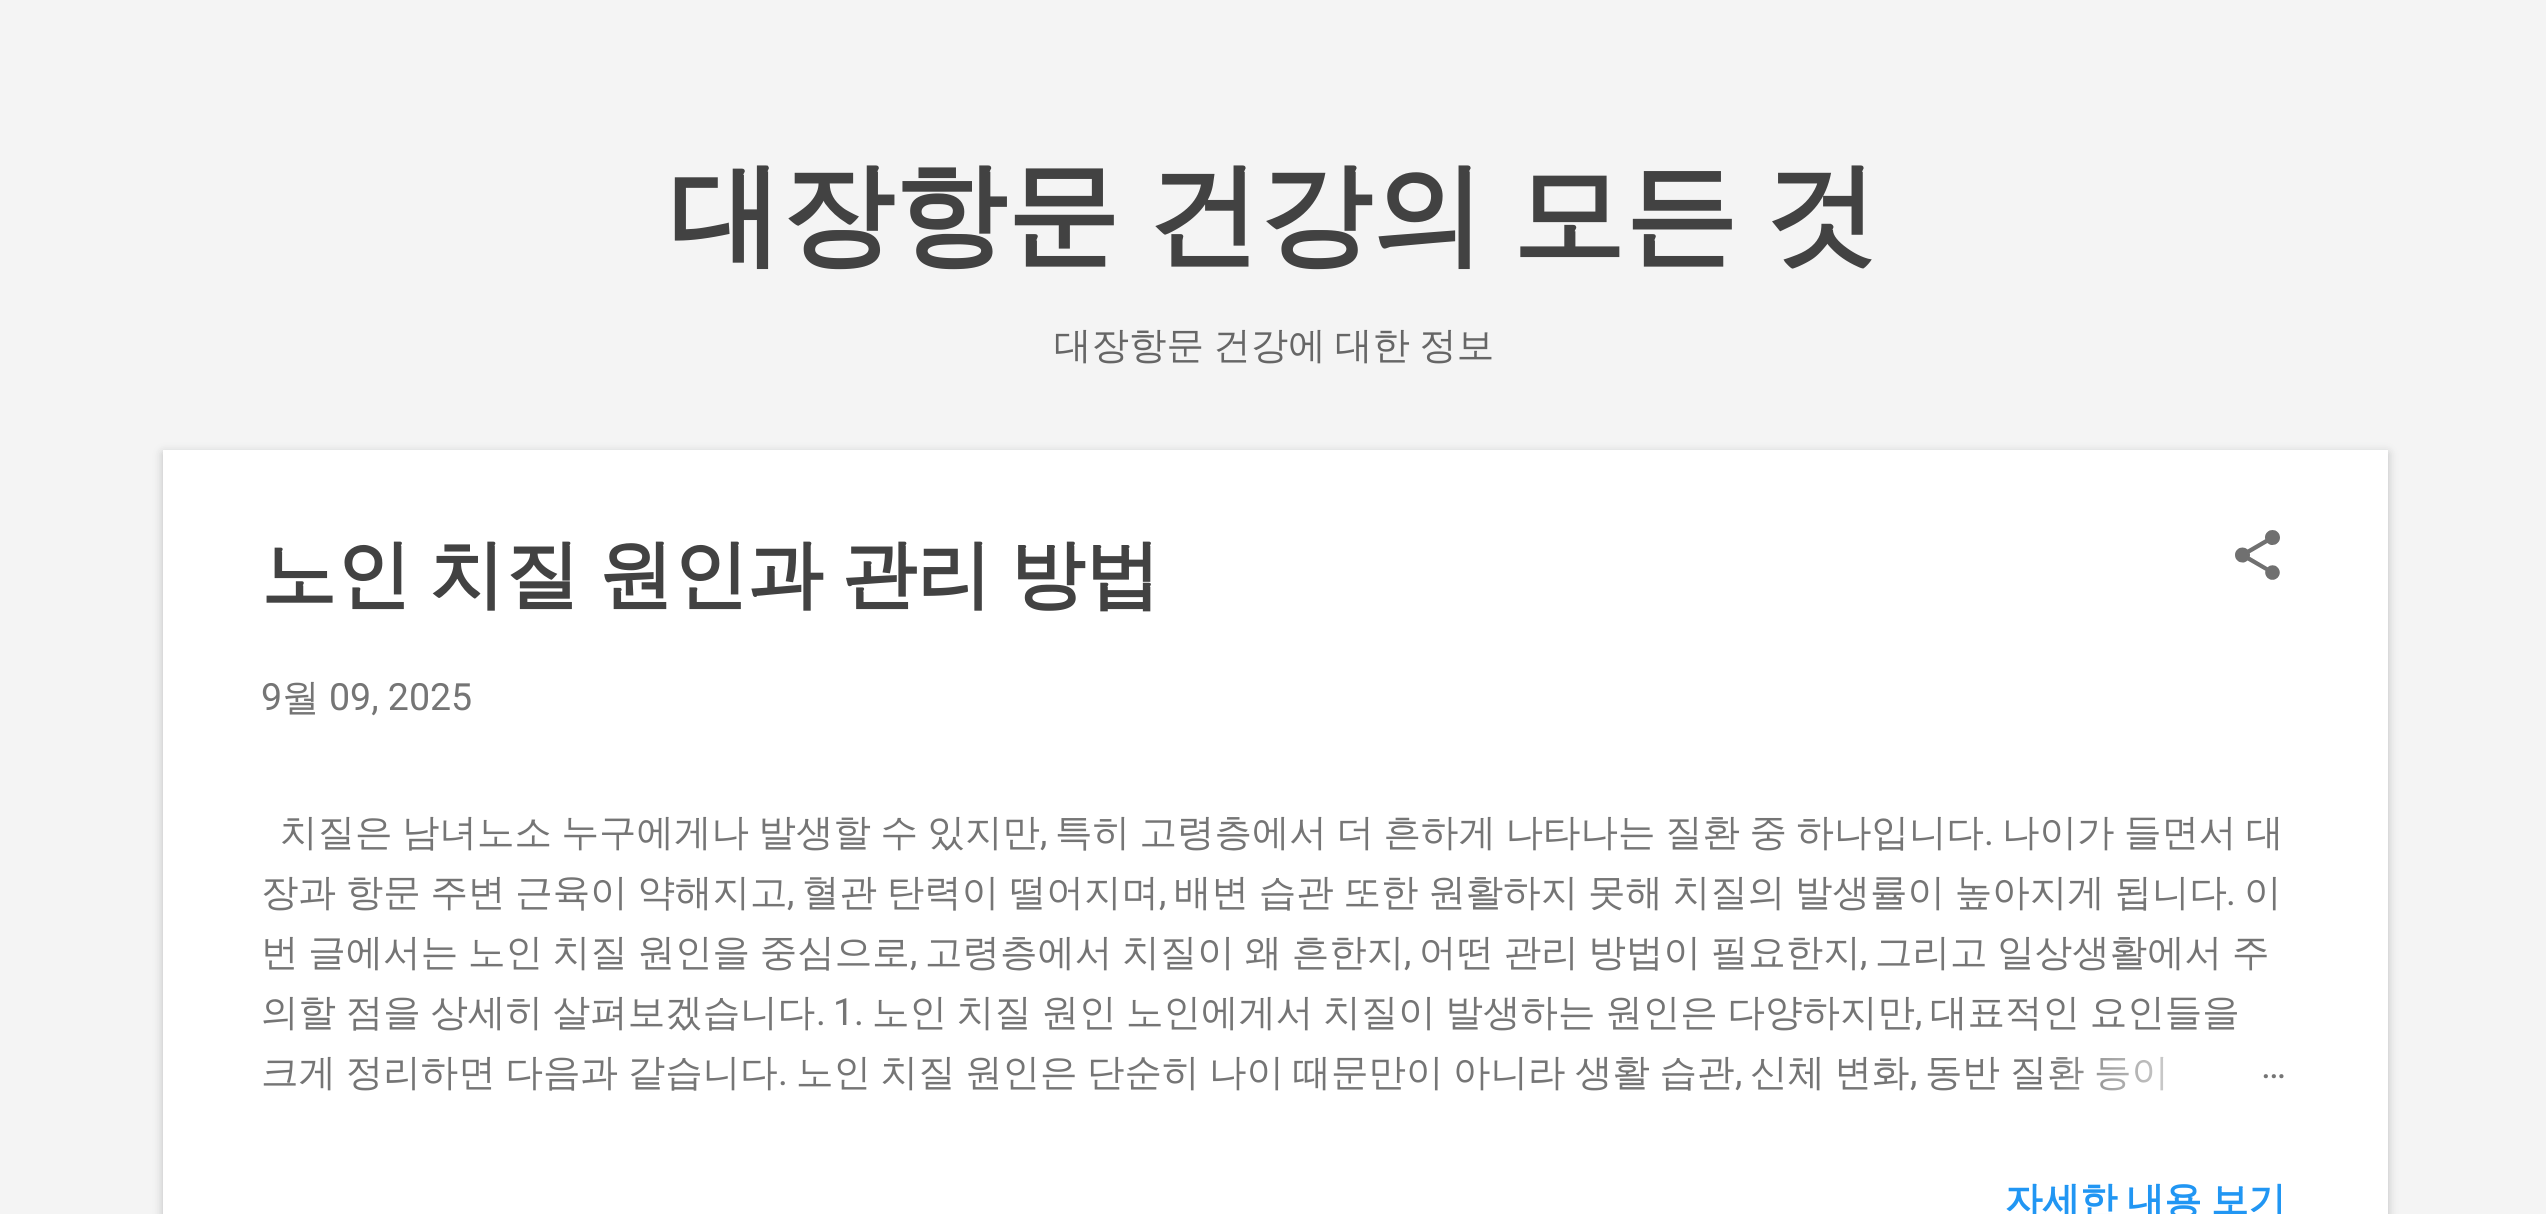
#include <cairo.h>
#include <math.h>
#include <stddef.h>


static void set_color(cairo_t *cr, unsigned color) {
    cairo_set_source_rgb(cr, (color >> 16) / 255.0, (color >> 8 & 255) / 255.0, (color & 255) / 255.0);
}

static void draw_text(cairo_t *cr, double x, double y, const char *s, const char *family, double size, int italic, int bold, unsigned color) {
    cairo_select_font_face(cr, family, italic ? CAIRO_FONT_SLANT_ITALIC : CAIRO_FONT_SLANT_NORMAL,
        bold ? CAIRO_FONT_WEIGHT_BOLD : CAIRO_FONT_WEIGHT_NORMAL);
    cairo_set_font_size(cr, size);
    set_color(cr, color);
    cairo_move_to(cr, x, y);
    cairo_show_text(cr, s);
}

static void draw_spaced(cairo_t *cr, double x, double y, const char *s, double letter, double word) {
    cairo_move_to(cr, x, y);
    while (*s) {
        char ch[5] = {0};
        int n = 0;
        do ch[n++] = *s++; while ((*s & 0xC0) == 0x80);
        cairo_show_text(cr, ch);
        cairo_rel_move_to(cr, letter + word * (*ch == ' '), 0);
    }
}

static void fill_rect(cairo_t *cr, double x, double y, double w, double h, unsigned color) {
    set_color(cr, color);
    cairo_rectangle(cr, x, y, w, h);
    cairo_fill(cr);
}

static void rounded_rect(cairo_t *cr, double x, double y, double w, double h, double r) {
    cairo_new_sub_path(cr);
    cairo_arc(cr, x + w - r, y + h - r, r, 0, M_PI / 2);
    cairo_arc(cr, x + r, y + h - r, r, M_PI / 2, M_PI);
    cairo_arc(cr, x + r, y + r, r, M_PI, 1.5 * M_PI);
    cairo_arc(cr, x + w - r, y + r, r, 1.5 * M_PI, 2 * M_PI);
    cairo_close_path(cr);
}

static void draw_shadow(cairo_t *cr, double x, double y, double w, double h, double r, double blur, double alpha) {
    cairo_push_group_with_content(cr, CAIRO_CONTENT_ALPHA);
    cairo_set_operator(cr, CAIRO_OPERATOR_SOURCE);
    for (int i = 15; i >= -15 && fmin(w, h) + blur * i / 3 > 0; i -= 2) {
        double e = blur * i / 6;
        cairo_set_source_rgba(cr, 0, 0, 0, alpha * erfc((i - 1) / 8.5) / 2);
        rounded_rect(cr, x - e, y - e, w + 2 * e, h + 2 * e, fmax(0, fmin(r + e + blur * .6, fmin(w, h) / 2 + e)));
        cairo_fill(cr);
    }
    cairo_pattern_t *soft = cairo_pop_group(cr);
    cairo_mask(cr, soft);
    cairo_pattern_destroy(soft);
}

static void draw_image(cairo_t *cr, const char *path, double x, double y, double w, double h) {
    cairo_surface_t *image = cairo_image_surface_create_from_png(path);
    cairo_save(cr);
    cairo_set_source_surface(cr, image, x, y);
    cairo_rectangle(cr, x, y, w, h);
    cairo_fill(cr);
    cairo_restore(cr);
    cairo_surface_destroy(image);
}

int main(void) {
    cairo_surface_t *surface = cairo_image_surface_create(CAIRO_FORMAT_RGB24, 2546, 1214);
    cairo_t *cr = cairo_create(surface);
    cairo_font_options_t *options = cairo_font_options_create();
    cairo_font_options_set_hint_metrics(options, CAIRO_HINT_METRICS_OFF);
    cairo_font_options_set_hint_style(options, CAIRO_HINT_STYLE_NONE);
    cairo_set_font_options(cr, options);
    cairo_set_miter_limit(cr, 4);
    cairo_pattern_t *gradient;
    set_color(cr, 0xF4F4F4);
    cairo_paint(cr);
    cairo_select_font_face(cr, "WenQuanYi Zen Hei", CAIRO_FONT_SLANT_NORMAL, CAIRO_FONT_WEIGHT_BOLD);
    cairo_set_font_size(cr, 112.5);
    set_color(cr, 0x424242);
    draw_spaced(cr, 669, 253, "대장항문 건강의 모든 것", 0, -6);
    cairo_select_font_face(cr, "WenQuanYi Zen Hei Medium", CAIRO_FONT_SLANT_NORMAL, CAIRO_FONT_WEIGHT_NORMAL);
    cairo_set_font_size(cr, 37.5);
    set_color(cr, 0x666666);
    draw_spaced(cr, 1054, 358, "대장항문 건강에 대한 정보", 0, -2);
    set_color(cr, 0x3C4043);
    draw_shadow(cr, 163, 453, 2225, 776, 0, 5, 0.3);
    fill_rect(cr, 163, 450, 2225, 764, 0xFFFFFF);
    cairo_select_font_face(cr, "WenQuanYi Zen Hei", CAIRO_FONT_SLANT_NORMAL, CAIRO_FONT_WEIGHT_BOLD);
    cairo_set_font_size(cr, 75);
    set_color(cr, 0x424242);
    draw_spaced(cr, 261, 600, "노인 치질 원인과 관리 방법", 0, -4);
    draw_image(cr, "assets/img1.png", 2235, 530, 45, 50);
    draw_text(cr, 261, 710, "9", "Roboto", 37.5, 0, 0, 0x757575);
    draw_text(cr, 282, 710, "월", "WenQuanYi Zen Hei Medium", 37.5, 0, 0, 0x757575);
    draw_text(cr, 329, 710, "09, 2025", "Roboto", 37.5, 0, 0, 0x757575);
    cairo_select_font_face(cr, "WenQuanYi Zen Hei Medium", CAIRO_FONT_SLANT_NORMAL, CAIRO_FONT_WEIGHT_NORMAL);
    draw_spaced(cr, 280, 845, "치질은 남녀노소 누구에게나 발생할 수 있지만", 0, -1.75);
    draw_text(cr, 1040, 845, ",", "Roboto", 37.5, 0, 0, 0x757575);
    cairo_select_font_face(cr, "WenQuanYi Zen Hei Medium", CAIRO_FONT_SLANT_NORMAL, CAIRO_FONT_WEIGHT_NORMAL);
    draw_spaced(cr, 1055, 845, "특히 고령층에서 더 흔하게 나타나는 질환 중 하나입니다", 0, -1.75);
    draw_text(cr, 1984, 845, ".", "Roboto", 37.5, 0, 0, 0x757575);
    cairo_select_font_face(cr, "WenQuanYi Zen Hei Medium", CAIRO_FONT_SLANT_NORMAL, CAIRO_FONT_WEIGHT_NORMAL);
    draw_spaced(cr, 2002, 845, "나이가 들면서 대", 0, -1.75);
    draw_spaced(cr, 261, 905, "장과 항문 주변 근육이 약해지고", 0, -1.5);
    draw_text(cr, 787, 905, ",", "Roboto", 37.5, 0, 0, 0x757575);
    cairo_select_font_face(cr, "WenQuanYi Zen Hei Medium", CAIRO_FONT_SLANT_NORMAL, CAIRO_FONT_WEIGHT_NORMAL);
    draw_spaced(cr, 802, 905, "혈관 탄력이 떨어지며", 0, -1.5);
    draw_text(cr, 1159, 905, ",", "Roboto", 37.5, 0, 0, 0x757575);
    cairo_select_font_face(cr, "WenQuanYi Zen Hei Medium", CAIRO_FONT_SLANT_NORMAL, CAIRO_FONT_WEIGHT_NORMAL);
    draw_spaced(cr, 1174, 905, "배변 습관 또한 원활하지 못해 치질의 발생률이 높아지게 됩니다", 0, -1.5);
    draw_text(cr, 2226, 905, ".", "Roboto", 37.5, 0, 0, 0x757575);
    draw_text(cr, 2244, 905, "이", "WenQuanYi Zen Hei Medium", 37.5, 0, 0, 0x757575);
    draw_spaced(cr, 261, 965, "번 글에서는 노인 치질 원인을 중심으로", 0, -1.5);
    draw_text(cr, 910, 965, ",", "Roboto", 37.5, 0, 0, 0x757575);
    cairo_select_font_face(cr, "WenQuanYi Zen Hei Medium", CAIRO_FONT_SLANT_NORMAL, CAIRO_FONT_WEIGHT_NORMAL);
    draw_spaced(cr, 925, 965, "고령층에서 치질이 왜 흔한지", 0, -1.5);
    draw_text(cr, 1404, 965, ",", "Roboto", 37.5, 0, 0, 0x757575);
    cairo_select_font_face(cr, "WenQuanYi Zen Hei Medium", CAIRO_FONT_SLANT_NORMAL, CAIRO_FONT_WEIGHT_NORMAL);
    draw_spaced(cr, 1419, 965, "어떤 관리 방법이 필요한지", 0, -1.5);
    draw_text(cr, 1860, 965, ",", "Roboto", 37.5, 0, 0, 0x757575);
    cairo_select_font_face(cr, "WenQuanYi Zen Hei Medium", CAIRO_FONT_SLANT_NORMAL, CAIRO_FONT_WEIGHT_NORMAL);
    draw_spaced(cr, 1875, 965, "그리고 일상생활에서 주", 0, -1.5);
    draw_spaced(cr, 261, 1025, "의할 점을 상세히 살펴보겠습니다", 0, -1.5);
    draw_text(cr, 816, 1025, ".", "Roboto", 37.5, 0, 0, 0x757575);
    draw_text(cr, 833, 1025, "1.", "Roboto", 37.5, 0, 0, 0x757575);
    cairo_select_font_face(cr, "WenQuanYi Zen Hei Medium", CAIRO_FONT_SLANT_NORMAL, CAIRO_FONT_WEIGHT_NORMAL);
    draw_spaced(cr, 872, 1025, "노인 치질 원인", 0, -1.5);
    draw_spaced(cr, 1126, 1025, "노인에게서 치질이 발생하는 원인은 다양하지만", 0, -1.5);
    draw_text(cr, 1915, 1025, ",", "Roboto", 37.5, 0, 0, 0x757575);
    cairo_select_font_face(cr, "WenQuanYi Zen Hei Medium", CAIRO_FONT_SLANT_NORMAL, CAIRO_FONT_WEIGHT_NORMAL);
    draw_spaced(cr, 1930, 1025, "대표적인 요인들을", 0, -1.5);
    draw_spaced(cr, 261, 1085, "크게 정리하면 다음과 같습니다", 0, -1.5);
    draw_text(cr, 778, 1085, ".", "Roboto", 37.5, 0, 0, 0x757575);
    cairo_select_font_face(cr, "WenQuanYi Zen Hei Medium", CAIRO_FONT_SLANT_NORMAL, CAIRO_FONT_WEIGHT_NORMAL);
    draw_spaced(cr, 796, 1085, "노인 치질 원인은 단순히 나이 때문만이 아니라 생활 습관", 0, -1.75);
    draw_text(cr, 1735, 1085, ",", "Roboto", 37.5, 0, 0, 0x757575);
    cairo_select_font_face(cr, "WenQuanYi Zen Hei Medium", CAIRO_FONT_SLANT_NORMAL, CAIRO_FONT_WEIGHT_NORMAL);
    draw_spaced(cr, 1750, 1085, "신체 변화", 0, -1.75);
    draw_text(cr, 1910, 1085, ",", "Roboto", 37.5, 0, 0, 0x757575);
    cairo_select_font_face(cr, "WenQuanYi Zen Hei Medium", CAIRO_FONT_SLANT_NORMAL, CAIRO_FONT_WEIGHT_NORMAL);
    draw_spaced(cr, 1925, 1085, "동반 질환 등이", 0, -1.75);
    gradient = cairo_pattern_create_linear(2288, 1073, 2048, 1073);
    cairo_pattern_add_color_stop_rgba(gradient, 0, 1, 1, 1, 1);
    cairo_pattern_add_color_stop_rgba(gradient, 0.2, 1, 1, 1, 1);
    cairo_pattern_add_color_stop_rgba(gradient, 1, 1, 1, 1, 0);
    cairo_set_source(cr, gradient);
    cairo_pattern_destroy(gradient);
    cairo_rectangle(cr, 2052, 1056, 112, 35);
    cairo_fill(cr);
    draw_text(cr, 2261, 1078, "…", "Roboto", 37.5, 0, 0, 0x757575);
    cairo_select_font_face(cr, "WenQuanYi Zen Hei", CAIRO_FONT_SLANT_NORMAL, CAIRO_FONT_WEIGHT_BOLD);
    set_color(cr, 0x2196F3);
    draw_spaced(cr, 2005, 1213, "자세한 내용 보기", 0, -2);
    cairo_surface_write_to_png(surface, "output.png");
    cairo_font_options_destroy(options);
    cairo_destroy(cr);
    cairo_surface_destroy(surface);
    return 0;
}
